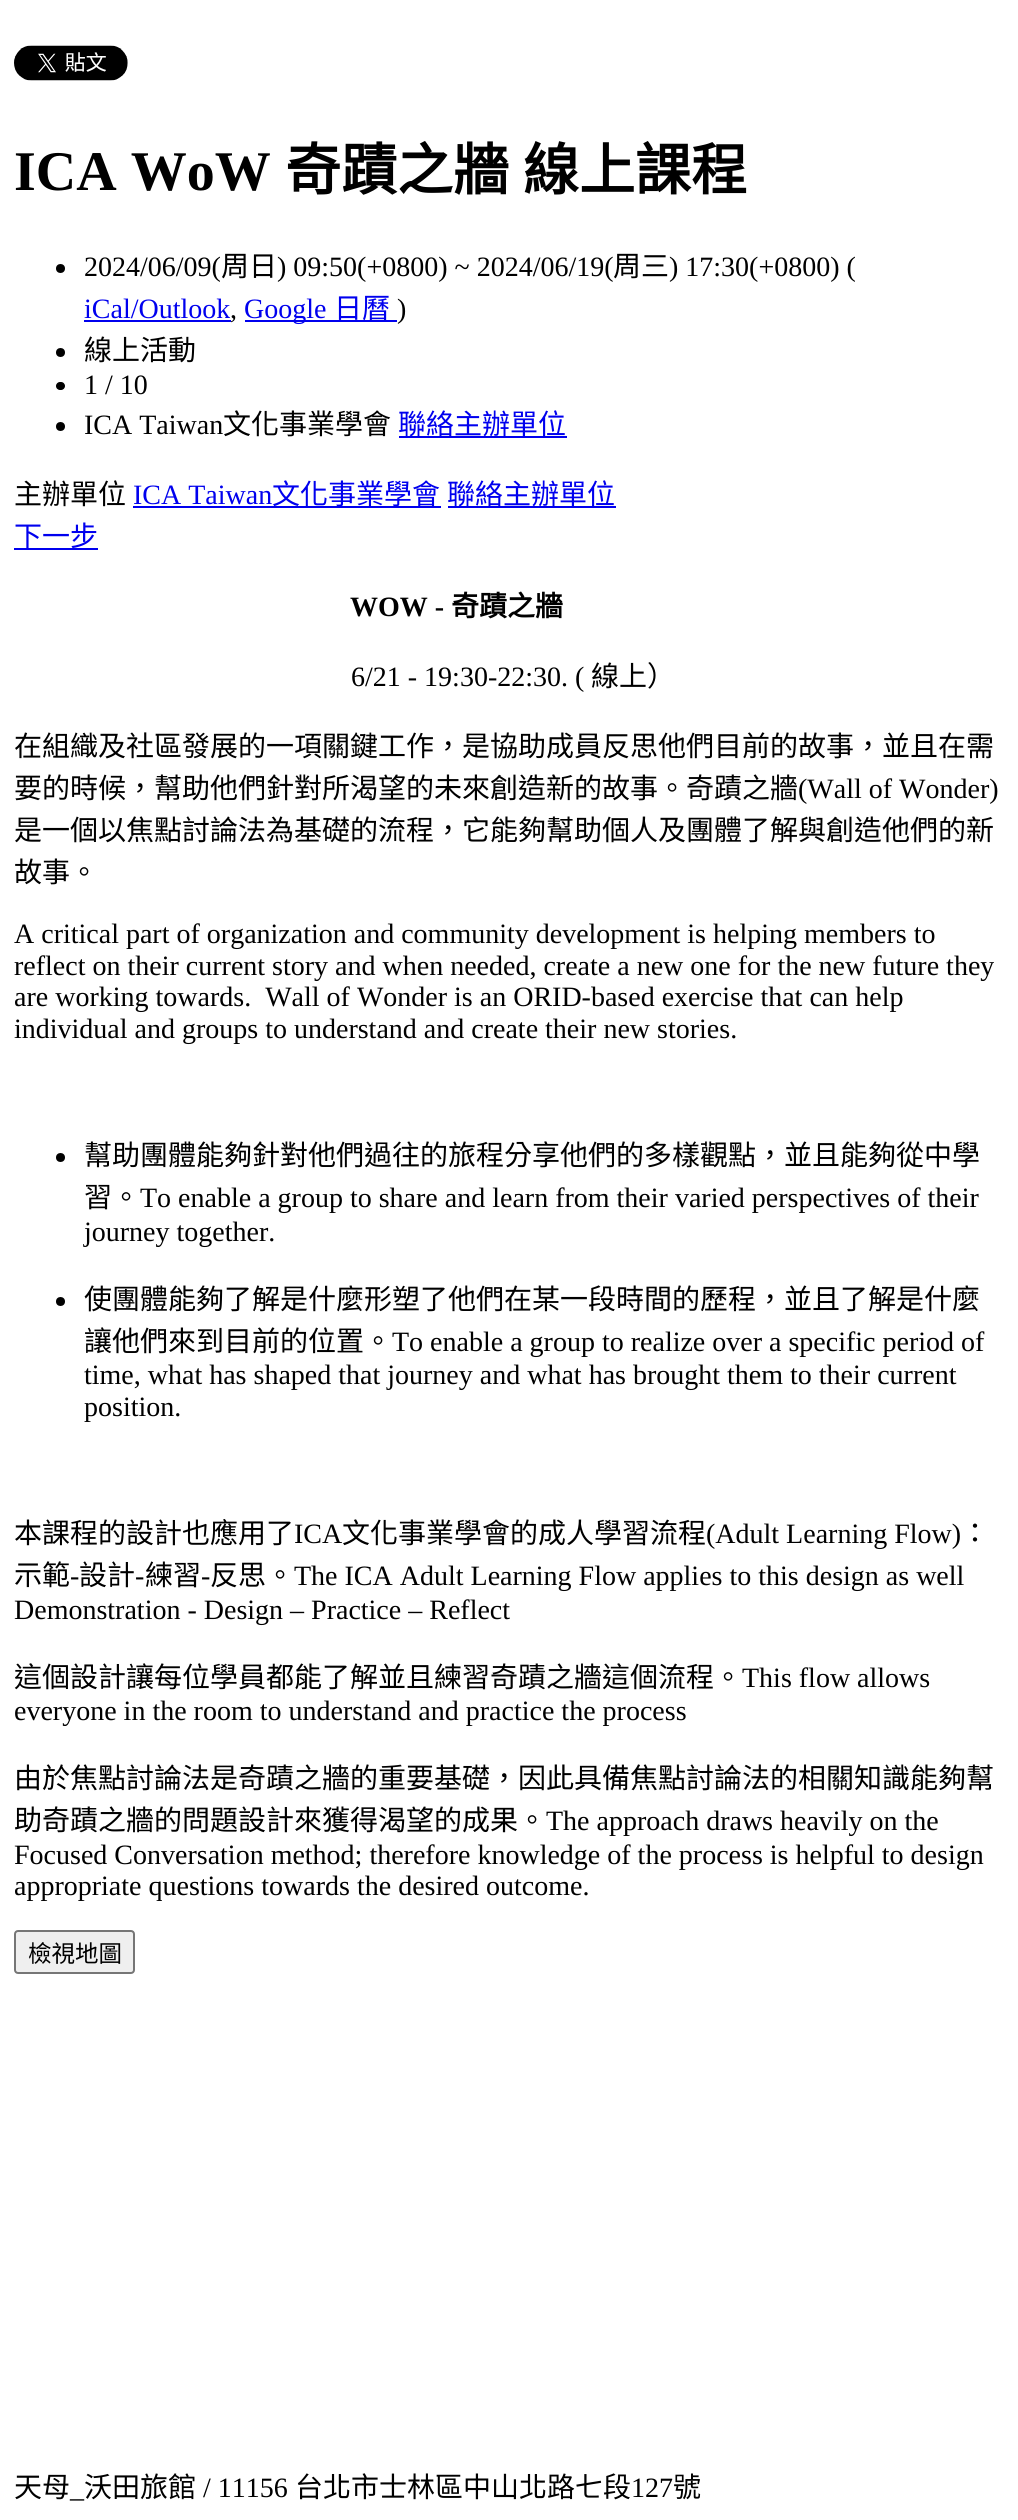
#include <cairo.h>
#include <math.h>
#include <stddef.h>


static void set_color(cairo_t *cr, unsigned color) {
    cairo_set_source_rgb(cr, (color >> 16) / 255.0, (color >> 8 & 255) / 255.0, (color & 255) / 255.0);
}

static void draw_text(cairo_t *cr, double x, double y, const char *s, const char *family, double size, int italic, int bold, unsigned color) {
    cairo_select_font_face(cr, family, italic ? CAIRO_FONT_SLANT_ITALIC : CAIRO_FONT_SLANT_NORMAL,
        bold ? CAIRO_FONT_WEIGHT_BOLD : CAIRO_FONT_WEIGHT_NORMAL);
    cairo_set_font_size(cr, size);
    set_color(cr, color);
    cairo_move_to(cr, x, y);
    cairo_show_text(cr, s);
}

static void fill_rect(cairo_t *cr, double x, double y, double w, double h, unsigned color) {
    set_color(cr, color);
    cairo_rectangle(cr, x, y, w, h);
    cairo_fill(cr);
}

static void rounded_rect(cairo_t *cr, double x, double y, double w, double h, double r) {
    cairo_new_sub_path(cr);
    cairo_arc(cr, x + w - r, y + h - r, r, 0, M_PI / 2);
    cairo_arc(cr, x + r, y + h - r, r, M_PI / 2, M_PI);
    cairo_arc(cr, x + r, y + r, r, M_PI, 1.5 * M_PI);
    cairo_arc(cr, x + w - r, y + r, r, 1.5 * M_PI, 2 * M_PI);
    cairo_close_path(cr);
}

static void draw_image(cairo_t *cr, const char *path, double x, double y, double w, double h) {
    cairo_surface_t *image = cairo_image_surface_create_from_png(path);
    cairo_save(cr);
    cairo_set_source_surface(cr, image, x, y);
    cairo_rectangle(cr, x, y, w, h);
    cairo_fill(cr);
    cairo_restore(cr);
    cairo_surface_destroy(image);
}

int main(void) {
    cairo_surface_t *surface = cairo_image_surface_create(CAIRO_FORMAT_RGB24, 1018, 2520);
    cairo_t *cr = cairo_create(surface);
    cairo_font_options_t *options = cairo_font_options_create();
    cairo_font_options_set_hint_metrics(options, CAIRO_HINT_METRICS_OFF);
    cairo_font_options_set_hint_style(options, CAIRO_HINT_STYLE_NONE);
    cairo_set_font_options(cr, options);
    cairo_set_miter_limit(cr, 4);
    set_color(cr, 0xFFFFFF);
    cairo_paint(cr);
    draw_image(cr, "assets/img1.png", 14, 45, 114, 36);
    draw_text(cr, 14, 190, "ICA WoW", "Liberation Serif", 56, 0, 1, 0x000000);
    draw_text(cr, 285, 190, "奇蹟之牆", "Noto Sans CJK TC", 56, 0, 1, 0x000000);
    draw_text(cr, 523, 190, "線上課程", "Noto Sans CJK TC", 56, 0, 1, 0x000000);
    cairo_new_path(cr);
    cairo_arc(cr, 60.5, 268.5, 4.5, 0, 2 * M_PI);
    cairo_fill(cr);
    draw_text(cr, 84, 276, "2024/06/09(", "Liberation Serif", 28, 0, 0, 0x000000);
    draw_text(cr, 221, 276, "周日", "Noto Sans CJK TC", 28, 0, 0, 0x000000);
    draw_text(cr, 277, 276, ") 09:50(+0800) ~ 2024/06/19(", "Liberation Serif", 28, 0, 0, 0x000000);
    draw_text(cr, 613, 276, "周三", "Noto Sans CJK TC", 28, 0, 0, 0x000000);
    draw_text(cr, 669, 276, ") 17:30(+0800) (", "Liberation Serif", 28, 0, 0, 0x000000);
    draw_text(cr, 84, 318, "iCal/Outlook", "Liberation Serif", 28, 0, 0, 0x0000EE);
    draw_text(cr, 230, 318, ",", "Liberation Serif", 28, 0, 0, 0x000000);
    fill_rect(cr, 84, 320, 147, 2, 0x0000EE);
    fill_rect(cr, 245, 320, 152, 2, 0x0000EE);
    draw_text(cr, 244, 318, "Google", "Liberation Serif", 28, 0, 0, 0x0000EE);
    draw_text(cr, 334, 318, "日曆", "Noto Sans CJK TC", 28, 0, 0, 0x0000EE);
    draw_text(cr, 397, 318, ")", "Liberation Serif", 28, 0, 0, 0x000000);
    cairo_new_path(cr);
    cairo_arc(cr, 60.5, 352.5, 4.5, 0, 2 * M_PI);
    cairo_fill(cr);
    draw_text(cr, 84, 360, "線上活動", "Noto Sans CJK TC", 28, 0, 0, 0x000000);
    rounded_rect(cr, 56, 382, 9, 8, 4);
    cairo_fill(cr);
    draw_text(cr, 84, 394, "1 / 10", "Liberation Serif", 28, 0, 0, 0x000000);
    cairo_new_path(cr);
    cairo_arc(cr, 60.5, 426.5, 4.5, 0, 2 * M_PI);
    cairo_fill(cr);
    draw_text(cr, 84, 434, "ICA Taiwan", "Liberation Serif", 28, 0, 0, 0x000000);
    draw_text(cr, 223, 434, "文化事業學會", "Noto Sans CJK TC", 28, 0, 0, 0x000000);
    fill_rect(cr, 399, 436, 168, 2, 0x0000EE);
    draw_text(cr, 398, 434, "聯絡主辦單位", "Noto Sans CJK TC", 28, 0, 0, 0x0000EE);
    draw_text(cr, 14, 504, "主辦單位", "Noto Sans CJK TC", 28, 0, 0, 0x000000);
    draw_text(cr, 133, 504, "ICA Taiwan", "Liberation Serif", 28, 0, 0, 0x0000EE);
    fill_rect(cr, 133, 506, 308, 2, 0x0000EE);
    draw_text(cr, 272, 504, "文化事業學會", "Noto Sans CJK TC", 28, 0, 0, 0x0000EE);
    fill_rect(cr, 448, 506, 168, 2, 0x0000EE);
    draw_text(cr, 447, 504, "聯絡主辦單位", "Noto Sans CJK TC", 28, 0, 0, 0x0000EE);
    fill_rect(cr, 14, 548, 84, 2, 0x0000EE);
    draw_text(cr, 14, 546, "下一步", "Noto Sans CJK TC", 28, 0, 0, 0x0000EE);
    draw_text(cr, 350, 616, "WOW -", "Liberation Serif", 28, 0, 1, 0x000000);
    draw_text(cr, 451, 616, "奇蹟之牆", "Noto Sans CJK TC", 28, 0, 1, 0x000000);
    draw_text(cr, 351, 686, "6/21 - 19:30-22:30. (", "Liberation Serif", 28, 0, 0, 0x000000);
    draw_text(cr, 591, 686, "線上）", "Noto Sans CJK TC", 28, 0, 0, 0x000000);
    draw_text(cr, 14, 756, "在組織及社區發展的一項關鍵工作，是協助成員反思他們目前的故事，並且在需", "Noto Sans CJK TC", 28, 0, 0, 0x000000);
    draw_text(cr, 14, 798, "要的時候，幫助他們針對所渴望的未來創造新的故事。奇蹟之牆", "Noto Sans CJK TC", 28, 0, 0, 0x000000);
    draw_text(cr, 798, 798, "(Wall of Wonder)", "Liberation Serif", 28, 0, 0, 0x000000);
    draw_text(cr, 14, 840, "是一個以焦點討論法為基礎的流程，它能夠幫助個人及團體了解與創造他們的新", "Noto Sans CJK TC", 28, 0, 0, 0x000000);
    draw_text(cr, 14, 882, "故事。", "Noto Sans CJK TC", 28, 0, 0, 0x000000);
    draw_text(cr, 14, 943, "A critical part of organization and community development is helping members to", "Liberation Serif", 28, 0, 0, 0x000000);
    draw_text(cr, 14, 975, "reflect on their current story and when needed, create a new one for the new future they", "Liberation Serif", 28, 0, 0, 0x000000);
    draw_text(cr, 14, 1006, "are working towards.  Wall of Wonder is an ORID-based exercise that can help", "Liberation Serif", 28, 0, 0, 0x000000);
    draw_text(cr, 14, 1038, "individual and groups to understand and create their new stories.", "Liberation Serif", 28, 0, 0, 0x000000);
    cairo_new_path(cr);
    cairo_arc(cr, 60.5, 1157.5, 4.5, 0, 2 * M_PI);
    cairo_fill(cr);
    draw_text(cr, 84, 1165, "幫助團體能夠針對他們過往的旅程分享他們的多樣觀點，並且能夠從中學", "Noto Sans CJK TC", 28, 0, 0, 0x000000);
    draw_text(cr, 84, 1207, "習。", "Noto Sans CJK TC", 28, 0, 0, 0x000000);
    draw_text(cr, 140, 1207, "To enable a group to share and learn from their varied perspectives of their", "Liberation Serif", 28, 0, 0, 0x000000);
    draw_text(cr, 84, 1241, "journey together.", "Liberation Serif", 28, 0, 0, 0x000000);
    cairo_new_path(cr);
    cairo_arc(cr, 60.5, 1301.5, 4.5, 0, 2 * M_PI);
    cairo_fill(cr);
    draw_text(cr, 84, 1309, "使團體能夠了解是什麼形塑了他們在某一段時間的歷程，並且了解是什麼", "Noto Sans CJK TC", 28, 0, 0, 0x000000);
    draw_text(cr, 84, 1351, "讓他們來到目前的位置。", "Noto Sans CJK TC", 28, 0, 0, 0x000000);
    draw_text(cr, 392, 1351, "To enable a group to realize over a specific period of", "Liberation Serif", 28, 0, 0, 0x000000);
    draw_text(cr, 84, 1384, "time, what has shaped that journey and what has brought them to their current", "Liberation Serif", 28, 0, 0, 0x000000);
    draw_text(cr, 84, 1416, "position.", "Liberation Serif", 28, 0, 0, 0x000000);
    draw_text(cr, 14, 1543, "本課程的設計也應用了", "Noto Sans CJK TC", 28, 0, 0, 0x000000);
    draw_text(cr, 294, 1543, "ICA", "Liberation Serif", 28, 0, 0, 0x000000);
    draw_text(cr, 342, 1543, "文化事業學會的成人學習流程", "Noto Sans CJK TC", 28, 0, 0, 0x000000);
    draw_text(cr, 706, 1543, "(Adult Learning Flow)", "Liberation Serif", 28, 0, 0, 0x000000);
    draw_text(cr, 961, 1543, "：", "Noto Sans CJK TC", 28, 0, 0, 0x000000);
    draw_text(cr, 14, 1585, "示範", "Noto Sans CJK TC", 28, 0, 0, 0x000000);
    draw_text(cr, 70, 1585, "-", "Liberation Serif", 28, 0, 0, 0x000000);
    draw_text(cr, 79, 1585, "設計", "Noto Sans CJK TC", 28, 0, 0, 0x000000);
    draw_text(cr, 135, 1585, "-", "Liberation Serif", 28, 0, 0, 0x000000);
    draw_text(cr, 145, 1585, "練習", "Noto Sans CJK TC", 28, 0, 0, 0x000000);
    draw_text(cr, 201, 1585, "-", "Liberation Serif", 28, 0, 0, 0x000000);
    draw_text(cr, 210, 1585, "反思。", "Noto Sans CJK TC", 28, 0, 0, 0x000000);
    draw_text(cr, 294, 1585, "The ICA Adult Learning Flow applies to this design as well", "Liberation Serif", 28, 0, 0, 0x000000);
    draw_text(cr, 14, 1619, "Demonstration - Design – Practice – Reflect", "Liberation Serif", 28, 0, 0, 0x000000);
    draw_text(cr, 14, 1687, "這個設計讓每位學員都能了解並且練習奇蹟之牆這個流程。", "Noto Sans CJK TC", 28, 0, 0, 0x000000);
    draw_text(cr, 742, 1687, "This flow allows", "Liberation Serif", 28, 0, 0, 0x000000);
    draw_text(cr, 14, 1720, "everyone in the room to understand and practice the process", "Liberation Serif", 28, 0, 0, 0x000000);
    draw_text(cr, 14, 1788, "由於焦點討論法是奇蹟之牆的重要基礎，因此具備焦點討論法的相關知識能夠幫", "Noto Sans CJK TC", 28, 0, 0, 0x000000);
    draw_text(cr, 14, 1830, "助奇蹟之牆的問題設計來獲得渴望的成果。", "Noto Sans CJK TC", 28, 0, 0, 0x000000);
    draw_text(cr, 546, 1830, "The approach draws heavily on the", "Liberation Serif", 28, 0, 0, 0x000000);
    draw_text(cr, 14, 1864, "Focused Conversation method; therefore knowledge of the process is helpful to design", "Liberation Serif", 28, 0, 0, 0x000000);
    draw_text(cr, 14, 1895, "appropriate questions towards the desired outcome.", "Liberation Serif", 28, 0, 0, 0x000000);
    set_color(cr, 0xEFEFEF);
    rounded_rect(cr, 15, 1931, 119, 42, 3);
    cairo_fill_preserve(cr);
    set_color(cr, 0x767676);
    cairo_stroke(cr);
    draw_text(cr, 28, 1962, "檢視地圖", "Noto Sans CJK TC", 23.5, 0, 0, 0x000000);
    draw_text(cr, 14, 2497, "天母", "Noto Sans CJK TC", 28, 0, 0, 0x000000);
    draw_text(cr, 84, 2497, "沃田旅館", "Noto Sans CJK TC", 28, 0, 0, 0x000000);
    draw_text(cr, 203, 2497, "/ 11156", "Liberation Serif", 28, 0, 0, 0x000000);
    draw_text(cr, 295, 2497, "台北市士林區中山北路七段", "Noto Sans CJK TC", 28, 0, 0, 0x000000);
    draw_text(cr, 631, 2497, "127", "Liberation Serif", 28, 0, 0, 0x000000);
    draw_text(cr, 673, 2497, "號", "Noto Sans CJK TC", 28, 0, 0, 0x000000);
    draw_text(cr, 70, 2497, "_", "Liberation Serif", 28, 0, 0, 0x000000);
    cairo_surface_write_to_png(surface, "output.png");
    cairo_font_options_destroy(options);
    cairo_destroy(cr);
    cairo_surface_destroy(surface);
    return 0;
}
